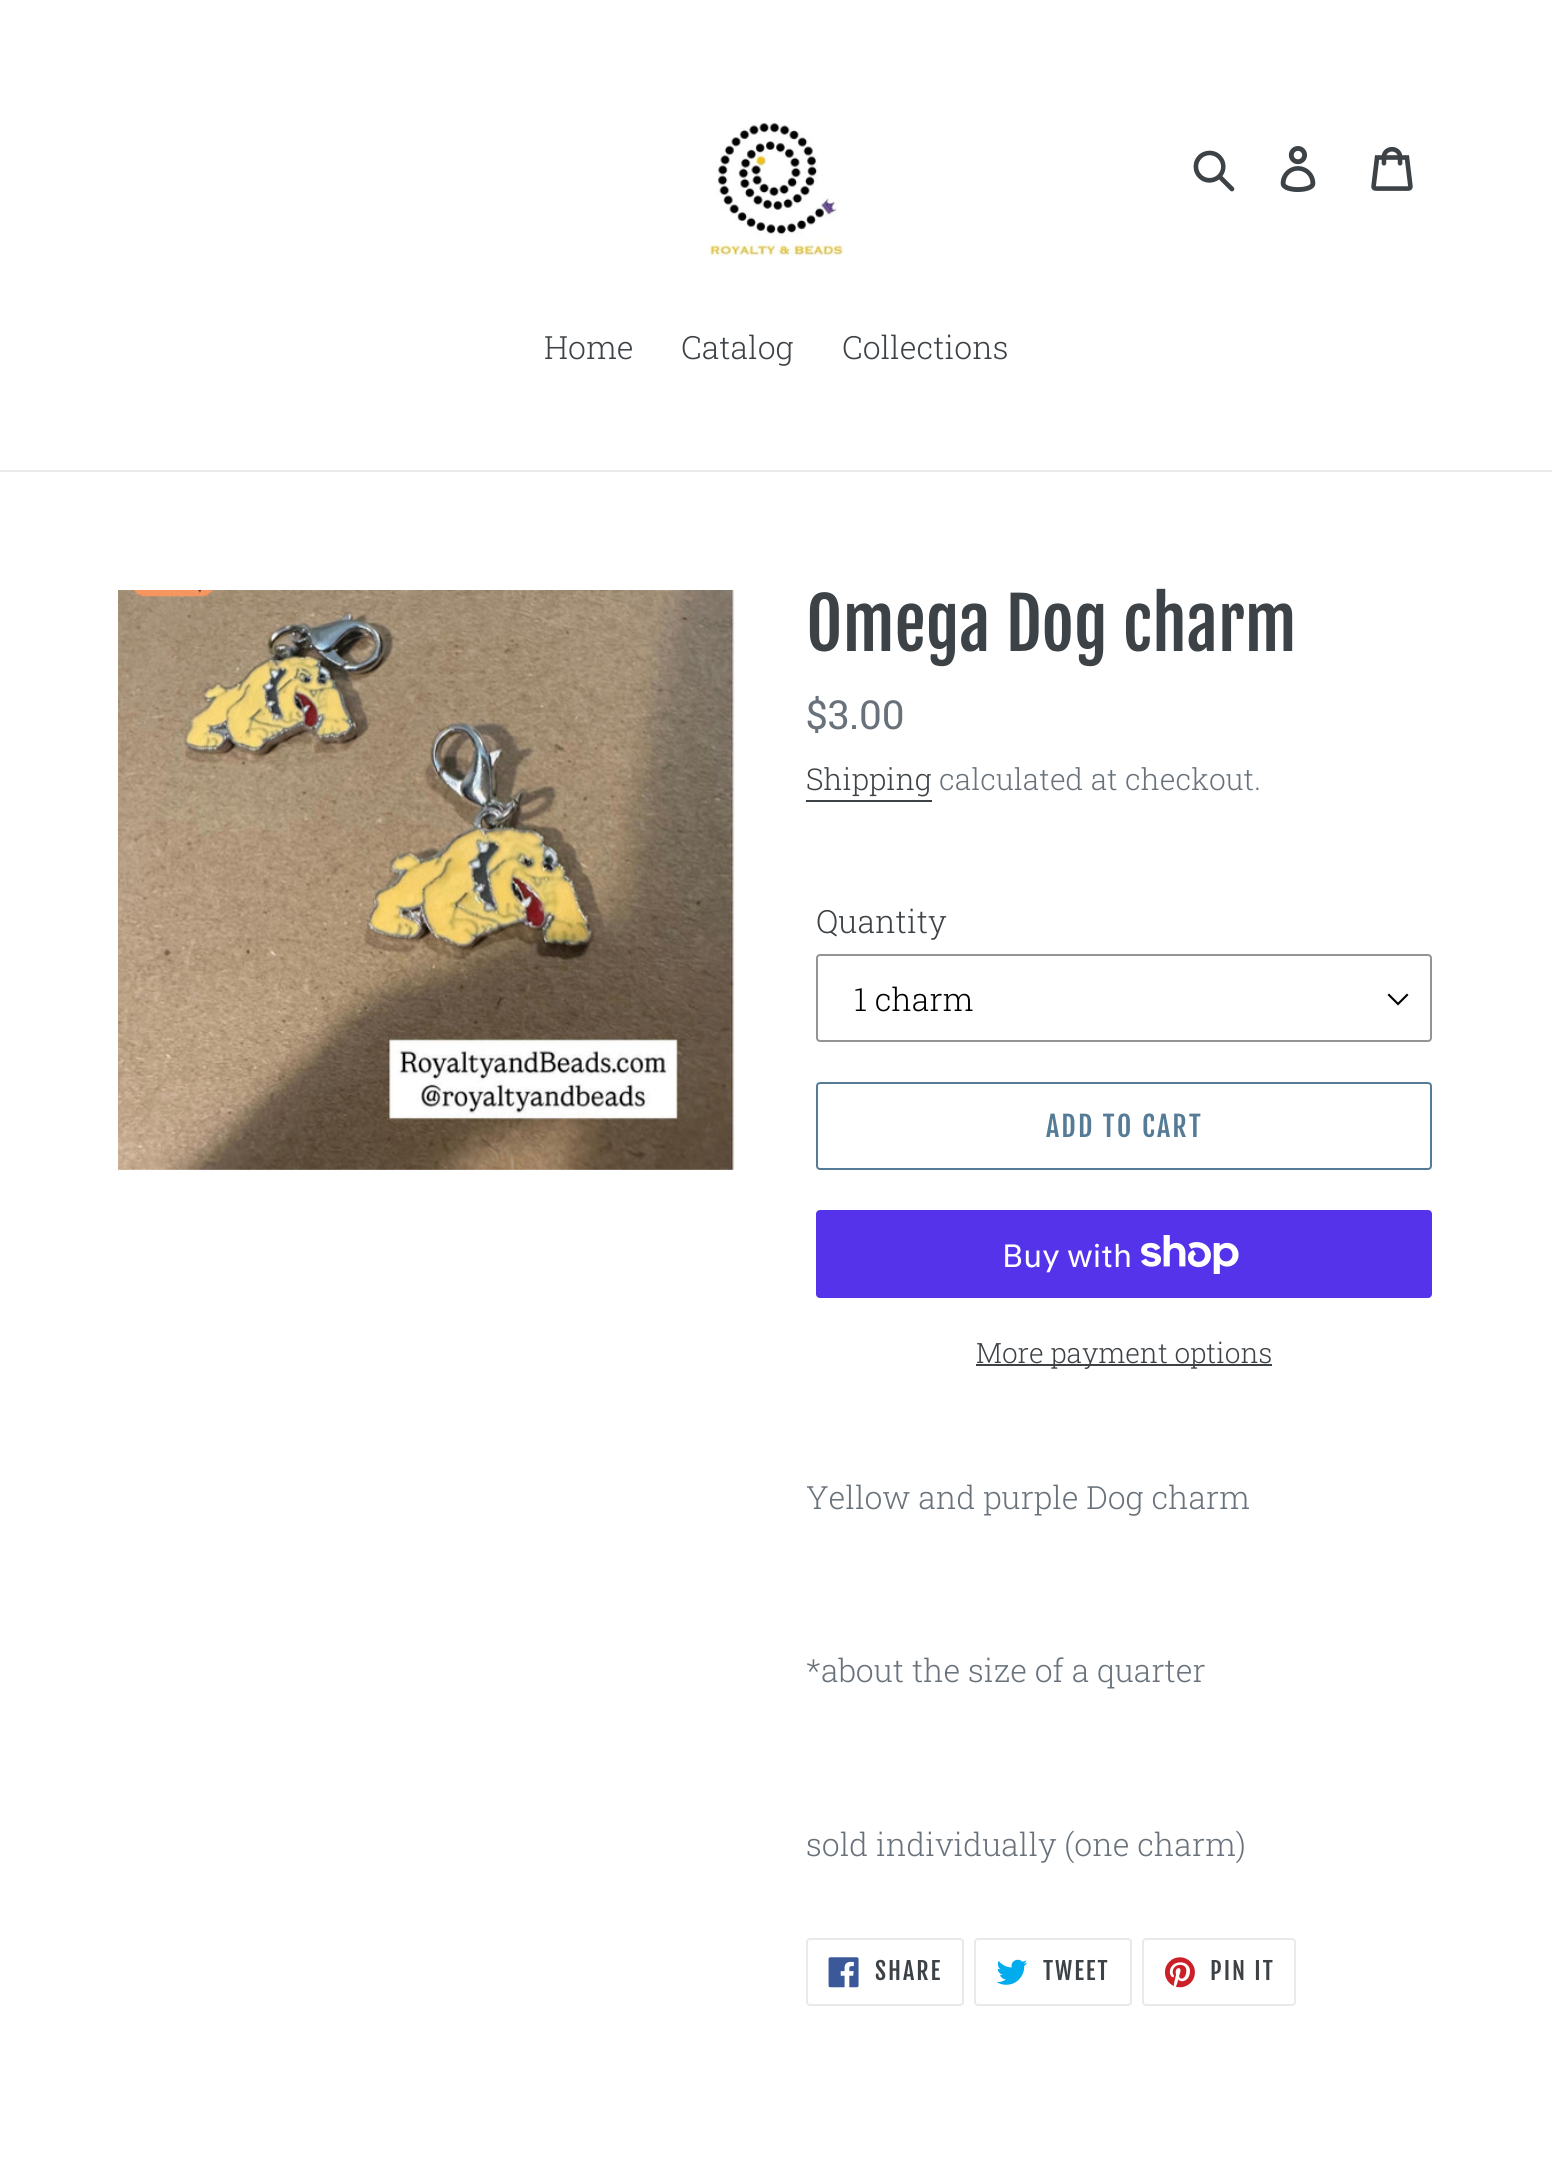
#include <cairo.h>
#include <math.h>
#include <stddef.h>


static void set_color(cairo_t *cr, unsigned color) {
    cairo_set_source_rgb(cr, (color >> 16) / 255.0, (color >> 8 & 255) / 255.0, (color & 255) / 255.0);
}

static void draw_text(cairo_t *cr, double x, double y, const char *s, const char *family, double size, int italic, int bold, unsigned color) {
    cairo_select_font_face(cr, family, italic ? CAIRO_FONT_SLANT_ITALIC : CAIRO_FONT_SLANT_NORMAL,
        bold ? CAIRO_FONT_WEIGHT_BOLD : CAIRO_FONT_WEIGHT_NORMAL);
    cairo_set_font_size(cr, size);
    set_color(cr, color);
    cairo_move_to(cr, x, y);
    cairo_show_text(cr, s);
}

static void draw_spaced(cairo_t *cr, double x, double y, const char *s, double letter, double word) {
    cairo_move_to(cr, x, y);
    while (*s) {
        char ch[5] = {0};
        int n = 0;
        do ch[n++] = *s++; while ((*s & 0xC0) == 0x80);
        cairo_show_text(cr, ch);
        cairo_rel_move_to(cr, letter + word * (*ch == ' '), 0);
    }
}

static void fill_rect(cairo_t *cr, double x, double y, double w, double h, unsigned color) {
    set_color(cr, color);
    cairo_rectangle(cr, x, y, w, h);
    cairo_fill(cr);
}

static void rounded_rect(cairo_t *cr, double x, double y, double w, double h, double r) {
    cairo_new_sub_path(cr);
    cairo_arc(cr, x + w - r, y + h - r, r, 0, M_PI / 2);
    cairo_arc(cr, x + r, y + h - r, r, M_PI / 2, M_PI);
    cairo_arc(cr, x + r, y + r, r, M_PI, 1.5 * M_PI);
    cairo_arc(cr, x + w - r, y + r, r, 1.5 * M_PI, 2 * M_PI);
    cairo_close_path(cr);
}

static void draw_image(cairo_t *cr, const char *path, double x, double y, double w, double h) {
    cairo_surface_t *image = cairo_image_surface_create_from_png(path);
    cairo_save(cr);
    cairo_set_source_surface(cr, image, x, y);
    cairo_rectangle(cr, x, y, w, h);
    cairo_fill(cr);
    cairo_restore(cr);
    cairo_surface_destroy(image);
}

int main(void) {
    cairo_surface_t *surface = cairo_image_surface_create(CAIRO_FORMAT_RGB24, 1552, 2177);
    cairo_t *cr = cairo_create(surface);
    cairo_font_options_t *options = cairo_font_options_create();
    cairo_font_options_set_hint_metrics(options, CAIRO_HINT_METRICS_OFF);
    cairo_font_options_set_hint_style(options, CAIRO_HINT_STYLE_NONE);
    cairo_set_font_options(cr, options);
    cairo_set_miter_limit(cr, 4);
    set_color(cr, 0xFFFFFF);
    cairo_paint(cr);
    draw_image(cr, "assets/img1.png", 708, 122, 137, 135);
    draw_image(cr, "assets/img2.png", 1193, 150, 42, 42);
    draw_image(cr, "assets/img3.png", 1280, 146, 36, 46);
    draw_image(cr, "assets/img4.png", 1371, 146, 42, 45);
    fill_rect(cr, 0, 470, 1552, 2, 0xE8E9EB);
    draw_text(cr, 544, 359, "Home", "Roboto Slab Light", 32, 0, 0, 0x3D4246);
    draw_text(cr, 681, 359, "Catalog", "Roboto Slab Light", 32, 0, 0, 0x3D4246);
    draw_text(cr, 842, 359, "Collections", "Roboto Slab Light", 32, 0, 0, 0x3D4246);
    draw_image(cr, "assets/img5.png", 118, 590, 617, 580);
    draw_text(cr, 806, 651, "Omega Dog charm", "Fjalla One", 70, 0, 0, 0x3D4246);
    draw_text(cr, 806, 729, "$3.00", "Roboto Slab", 40, 0, 0, 0x69727B);
    draw_text(cr, 806, 790, "Shipping", "Roboto Slab Light", 30, 0, 0, 0x3D4246);
    fill_rect(cr, 806, 800, 126, 2, 0x3D4246);
    draw_text(cr, 939, 790, "calculated at checkout.", "Roboto Slab Light", 30, 0, 0, 0x69727B);
    draw_text(cr, 816, 933, "Quantity", "Roboto Slab Light", 32, 0, 0, 0x3D4246);
    set_color(cr, 0x000000);
    cairo_new_path(cr);
    cairo_move_to(cr, 1398, 1005.5);
    cairo_line_to(cr, 1387.5, 995);
    cairo_line_to(cr, 1389, 993.5);
    cairo_line_to(cr, 1398, 1002.5);
    cairo_line_to(cr, 1407, 993.5);
    cairo_line_to(cr, 1408.5, 995);
    cairo_close_path(cr);
    cairo_fill(cr);
    rounded_rect(cr, 817, 955, 614, 86, 3);
    set_color(cr, 0x949494);
    cairo_stroke(cr);
    draw_text(cr, 854, 1011, "1 charm", "Roboto Slab Light", 32, 0, 0, 0x000000);
    rounded_rect(cr, 817, 1083, 614, 86, 3);
    set_color(cr, 0x557B97);
    cairo_stroke(cr);
    cairo_select_font_face(cr, "Fjalla One", CAIRO_FONT_SLANT_NORMAL, CAIRO_FONT_WEIGHT_NORMAL);
    cairo_set_font_size(cr, 28);
    draw_spaced(cr, 1046, 1137, "ADD TO CART", 2.25, 0);
    set_color(cr, 0x5433EB);
    rounded_rect(cr, 816, 1210, 616, 88, 4);
    cairo_fill(cr);
    draw_text(cr, 1002, 1267, "Buy with", "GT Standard", 32, 0, 0, 0xFFFFFF);
    draw_image(cr, "assets/img6.png", 1141, 1235, 98, 39);
    fill_rect(cr, 976, 1364, 296, 2, 0x3D4246);
    draw_text(cr, 976, 1363, "More payment options", "Roboto Slab Light", 28, 0, 0, 0x3D4246);
    draw_text(cr, 806, 1509, "Yellow and purple Dog charm", "Roboto Slab Light", 32, 0, 0, 0x69727B);
    draw_text(cr, 806, 1682, "*about the size of a quarter", "Roboto Slab Light", 32, 0, 0, 0x69727B);
    draw_text(cr, 806, 1856, "sold individually (one charm)", "Roboto Slab Light", 32, 0, 0, 0x69727B);
    rounded_rect(cr, 807, 1939, 156, 66, 3);
    set_color(cr, 0xE8E9EB);
    cairo_stroke(cr);
    draw_image(cr, "assets/img7.png", 828, 1957, 31, 31);
    cairo_select_font_face(cr, "Fjalla One", CAIRO_FONT_SLANT_NORMAL, CAIRO_FONT_WEIGHT_NORMAL);
    cairo_set_font_size(cr, 24);
    set_color(cr, 0x3D4246);
    draw_spaced(cr, 875, 1980, "SHARE", 2, 0);
    rounded_rect(cr, 975, 1939, 156, 66, 3);
    set_color(cr, 0xE8E9EB);
    cairo_stroke(cr);
    draw_image(cr, "assets/img8.png", 996, 1959, 32, 26);
    set_color(cr, 0x3D4246);
    draw_spaced(cr, 1043, 1980, "TWEET", 2, 0);
    rounded_rect(cr, 1143, 1939, 152, 66, 3);
    set_color(cr, 0xE8E9EB);
    cairo_stroke(cr);
    draw_image(cr, "assets/img9.png", 1164, 1957, 31, 31);
    set_color(cr, 0x3D4246);
    draw_spaced(cr, 1210, 1980, "PIN IT", 2, 0);
    cairo_surface_write_to_png(surface, "output.png");
    cairo_font_options_destroy(options);
    cairo_destroy(cr);
    cairo_surface_destroy(surface);
    return 0;
}
